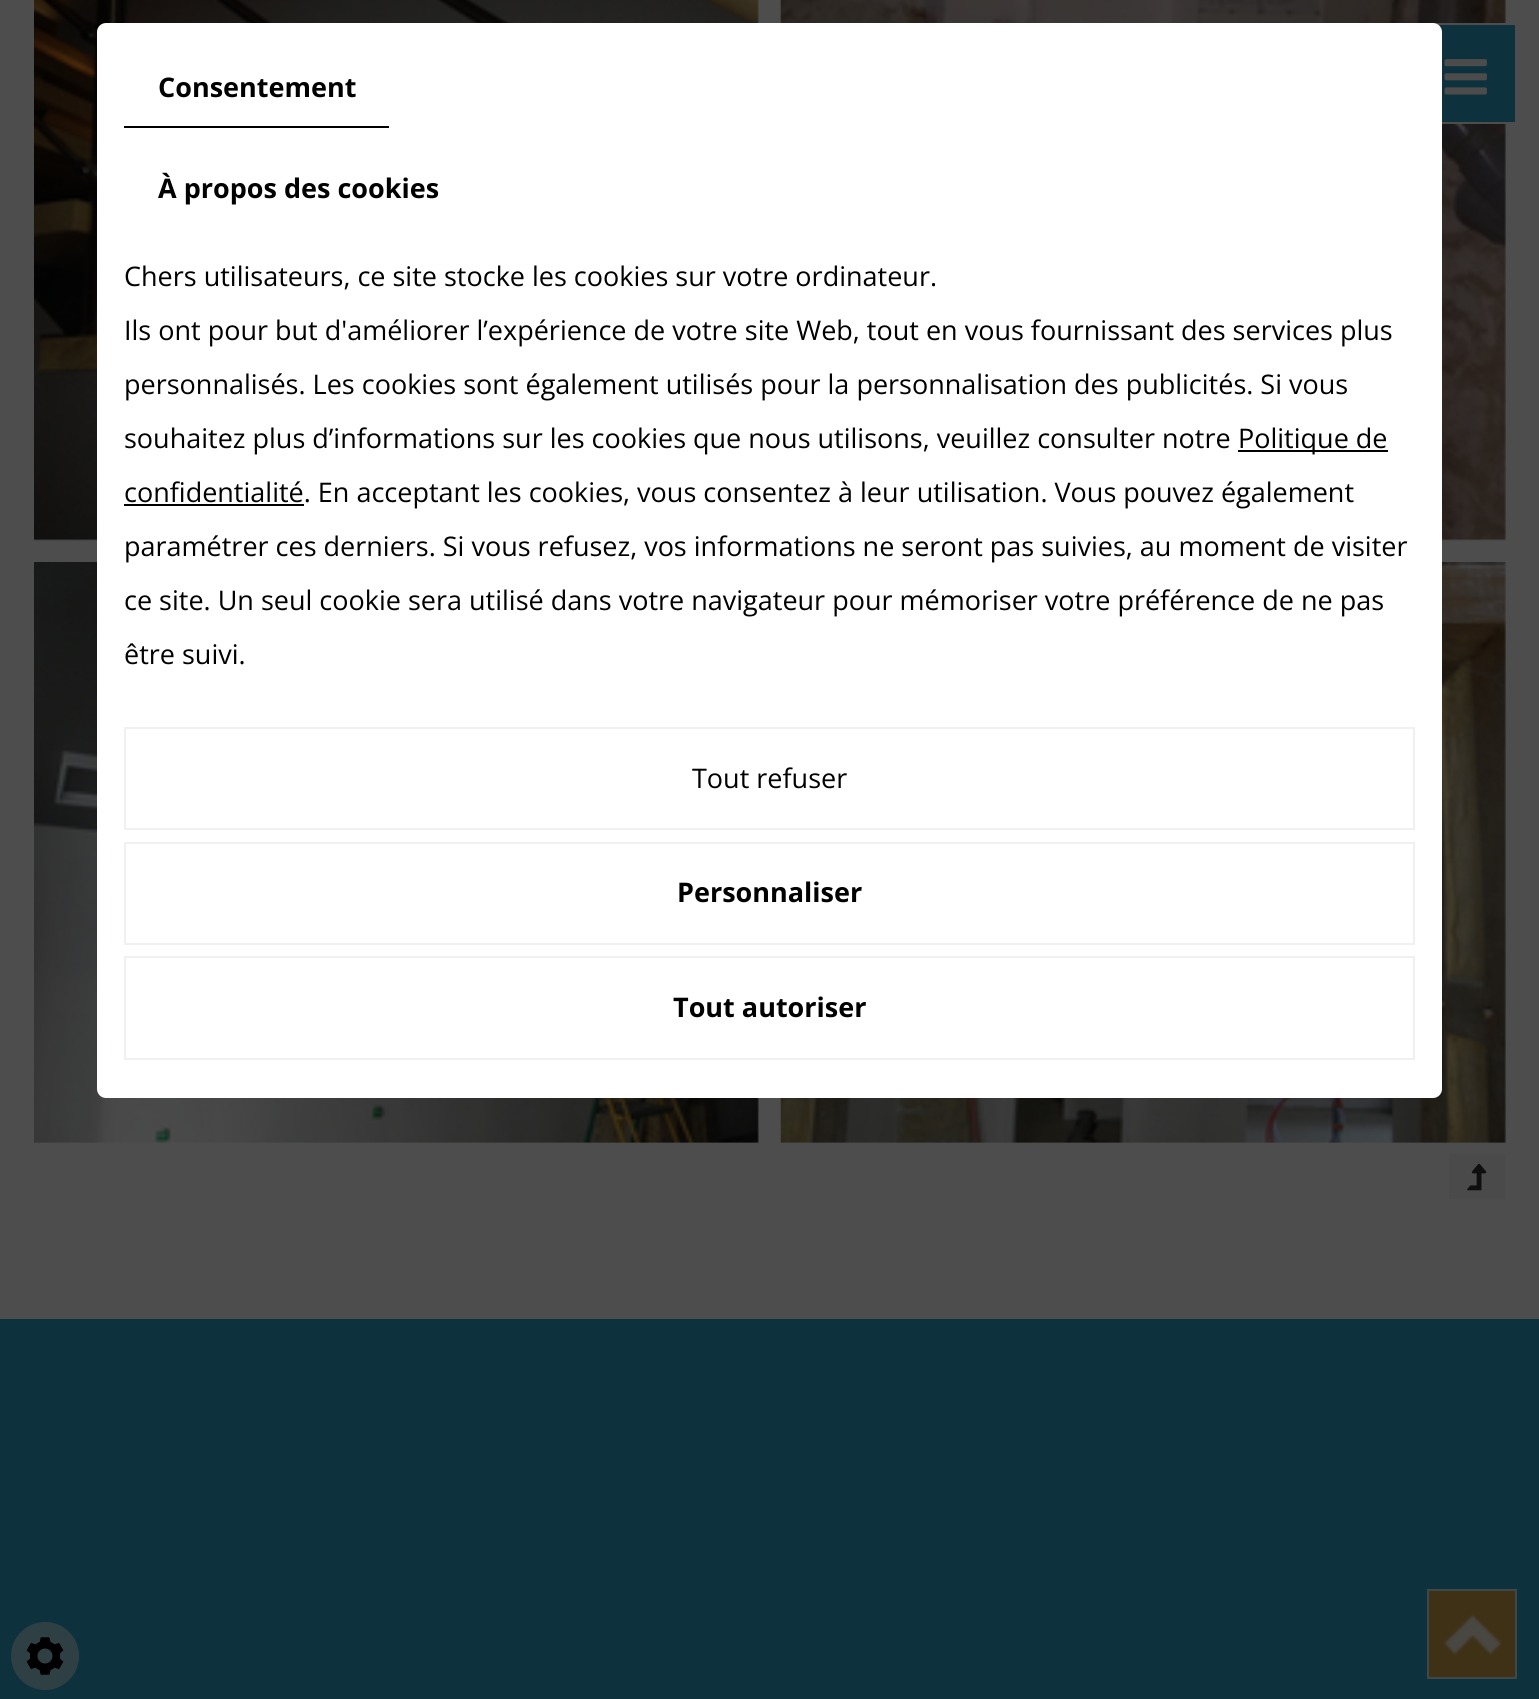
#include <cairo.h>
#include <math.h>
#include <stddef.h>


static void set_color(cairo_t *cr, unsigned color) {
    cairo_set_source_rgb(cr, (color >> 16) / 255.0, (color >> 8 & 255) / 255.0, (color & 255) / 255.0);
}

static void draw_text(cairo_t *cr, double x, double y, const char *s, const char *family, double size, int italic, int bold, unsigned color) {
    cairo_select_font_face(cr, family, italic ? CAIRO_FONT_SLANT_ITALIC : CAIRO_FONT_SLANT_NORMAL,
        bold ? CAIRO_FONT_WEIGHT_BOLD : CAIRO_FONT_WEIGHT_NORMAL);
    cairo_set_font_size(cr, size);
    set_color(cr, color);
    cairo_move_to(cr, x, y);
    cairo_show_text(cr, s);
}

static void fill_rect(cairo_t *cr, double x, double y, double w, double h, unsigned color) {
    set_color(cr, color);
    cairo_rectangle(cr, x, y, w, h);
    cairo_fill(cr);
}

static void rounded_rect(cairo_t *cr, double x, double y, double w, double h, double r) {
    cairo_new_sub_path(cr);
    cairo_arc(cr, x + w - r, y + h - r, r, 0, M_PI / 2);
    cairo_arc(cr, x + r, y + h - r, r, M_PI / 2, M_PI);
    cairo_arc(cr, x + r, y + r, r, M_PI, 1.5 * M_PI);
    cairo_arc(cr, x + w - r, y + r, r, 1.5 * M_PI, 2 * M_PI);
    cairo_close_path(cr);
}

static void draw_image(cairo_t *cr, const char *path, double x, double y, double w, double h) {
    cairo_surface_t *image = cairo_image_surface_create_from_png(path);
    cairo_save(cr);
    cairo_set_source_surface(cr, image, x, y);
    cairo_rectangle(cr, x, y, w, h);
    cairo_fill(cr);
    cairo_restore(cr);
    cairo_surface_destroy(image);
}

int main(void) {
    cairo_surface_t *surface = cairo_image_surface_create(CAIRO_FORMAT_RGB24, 1539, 1699);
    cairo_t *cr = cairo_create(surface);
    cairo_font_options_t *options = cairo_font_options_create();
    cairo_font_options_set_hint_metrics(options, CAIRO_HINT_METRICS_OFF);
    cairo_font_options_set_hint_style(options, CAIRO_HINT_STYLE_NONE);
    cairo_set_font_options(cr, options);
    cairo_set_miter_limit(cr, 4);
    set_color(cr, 0x4D4D4D);
    cairo_paint(cr);
    draw_image(cr, "assets/img1.png", 34, 0, 725, 541);
    draw_image(cr, "assets/img2.png", 780, 0, 726, 541);
    draw_image(cr, "assets/img3.png", 34, 562, 725, 581);
    draw_image(cr, "assets/img4.png", 780, 562, 726, 581);
    fill_rect(cr, 1449, 1154, 56, 45, 0x4A4A4A);
    draw_image(cr, "assets/img5.png", 1467, 1163, 20, 28);
    fill_rect(cr, 1438, 25, 77, 97, 0x0D323D);
    cairo_rectangle(cr, 1416, 24, 100, 99);
    set_color(cr, 0x4D4D4D);
    cairo_stroke(cr);
    set_color(cr, 0xFFFFFF);
    rounded_rect(cr, 97, 23, 1345, 1075, 9);
    cairo_fill(cr);
    fill_rect(cr, 124, 126, 265, 2, 0x000000);
    draw_text(cr, 158, 97, "Consentement", "Open Sans", 27, 0, 1, 0x000000);
    draw_text(cr, 158, 198, "À propos des cookies", "Open Sans", 27, 0, 1, 0x000000);
    draw_text(cr, 124, 286, "Chers utilisateurs, ce site stocke les cookies sur votre ordinateur.", "Open Sans", 27, 0, 0, 0x000000);
    draw_text(cr, 124, 340, "Ils ont pour but d'améliorer l’expérience de votre site Web, tout en vous fournissant des services plus", "Open Sans", 27, 0, 0, 0x000000);
    draw_text(cr, 124, 394, "personnalisés. Les cookies sont également utilisés pour la personnalisation des publicités. Si vous", "Open Sans", 27, 0, 0, 0x000000);
    draw_text(cr, 124, 448, "souhaitez plus d’informations sur les cookies que nous utilisons, veuillez consulter notre", "Open Sans", 27, 0, 0, 0x000000);
    fill_rect(cr, 1238, 450, 150, 2, 0x000000);
    draw_text(cr, 1238, 448, "Politique de", "Open Sans", 27, 0, 0, 0x000000);
    fill_rect(cr, 124, 504, 180, 2, 0x000000);
    draw_text(cr, 124, 502, "confidentialité. En acceptant les cookies, vous consentez à leur utilisation. Vous pouvez également", "Open Sans", 27, 0, 0, 0x000000);
    draw_text(cr, 124, 556, "paramétrer ces derniers. Si vous refusez, vos informations ne seront pas suivies, au moment de visiter", "Open Sans", 27, 0, 0, 0x000000);
    draw_text(cr, 124, 610, "ce site. Un seul cookie sera utilisé dans votre navigateur pour mémoriser votre préférence de ne pas", "Open Sans", 27, 0, 0, 0x000000);
    draw_text(cr, 124, 664, "être suivi.", "Open Sans", 27, 0, 0, 0x000000);
    cairo_rectangle(cr, 125, 728, 1289, 101);
    set_color(cr, 0xF0F0F0);
    cairo_stroke(cr);
    draw_text(cr, 692, 788, "Tout refuser", "Open Sans", 27, 0, 0, 0x000000);
    cairo_rectangle(cr, 125, 843, 1289, 101);
    set_color(cr, 0xF0F0F0);
    cairo_stroke(cr);
    draw_text(cr, 677, 902, "Personnaliser", "Open Sans", 27, 0, 1, 0x000000);
    cairo_rectangle(cr, 125, 957, 1289, 102);
    set_color(cr, 0xF0F0F0);
    cairo_stroke(cr);
    draw_text(cr, 673, 1017, "Tout autoriser", "Open Sans", 27, 0, 1, 0x000000);
    draw_image(cr, "assets/img6.png", 1444, 59, 43, 36);
    fill_rect(cr, 0, 1319, 1539, 380, 0x0D323D);
    set_color(cr, 0x2F4045);
    cairo_arc(cr, 45, 1656, 34, 0, 2 * M_PI);
    cairo_fill(cr);
    draw_image(cr, "assets/img7.png", 26, 1637, 38, 38);
    fill_rect(cr, 1429, 1591, 86, 86, 0x3E3116);
    draw_image(cr, "assets/img8.png", 1443, 1614, 59, 41);
    cairo_rectangle(cr, 1428, 1590, 88, 88);
    set_color(cr, 0x40474A);
    cairo_stroke(cr);
    cairo_surface_write_to_png(surface, "output.png");
    cairo_font_options_destroy(options);
    cairo_destroy(cr);
    cairo_surface_destroy(surface);
    return 0;
}
